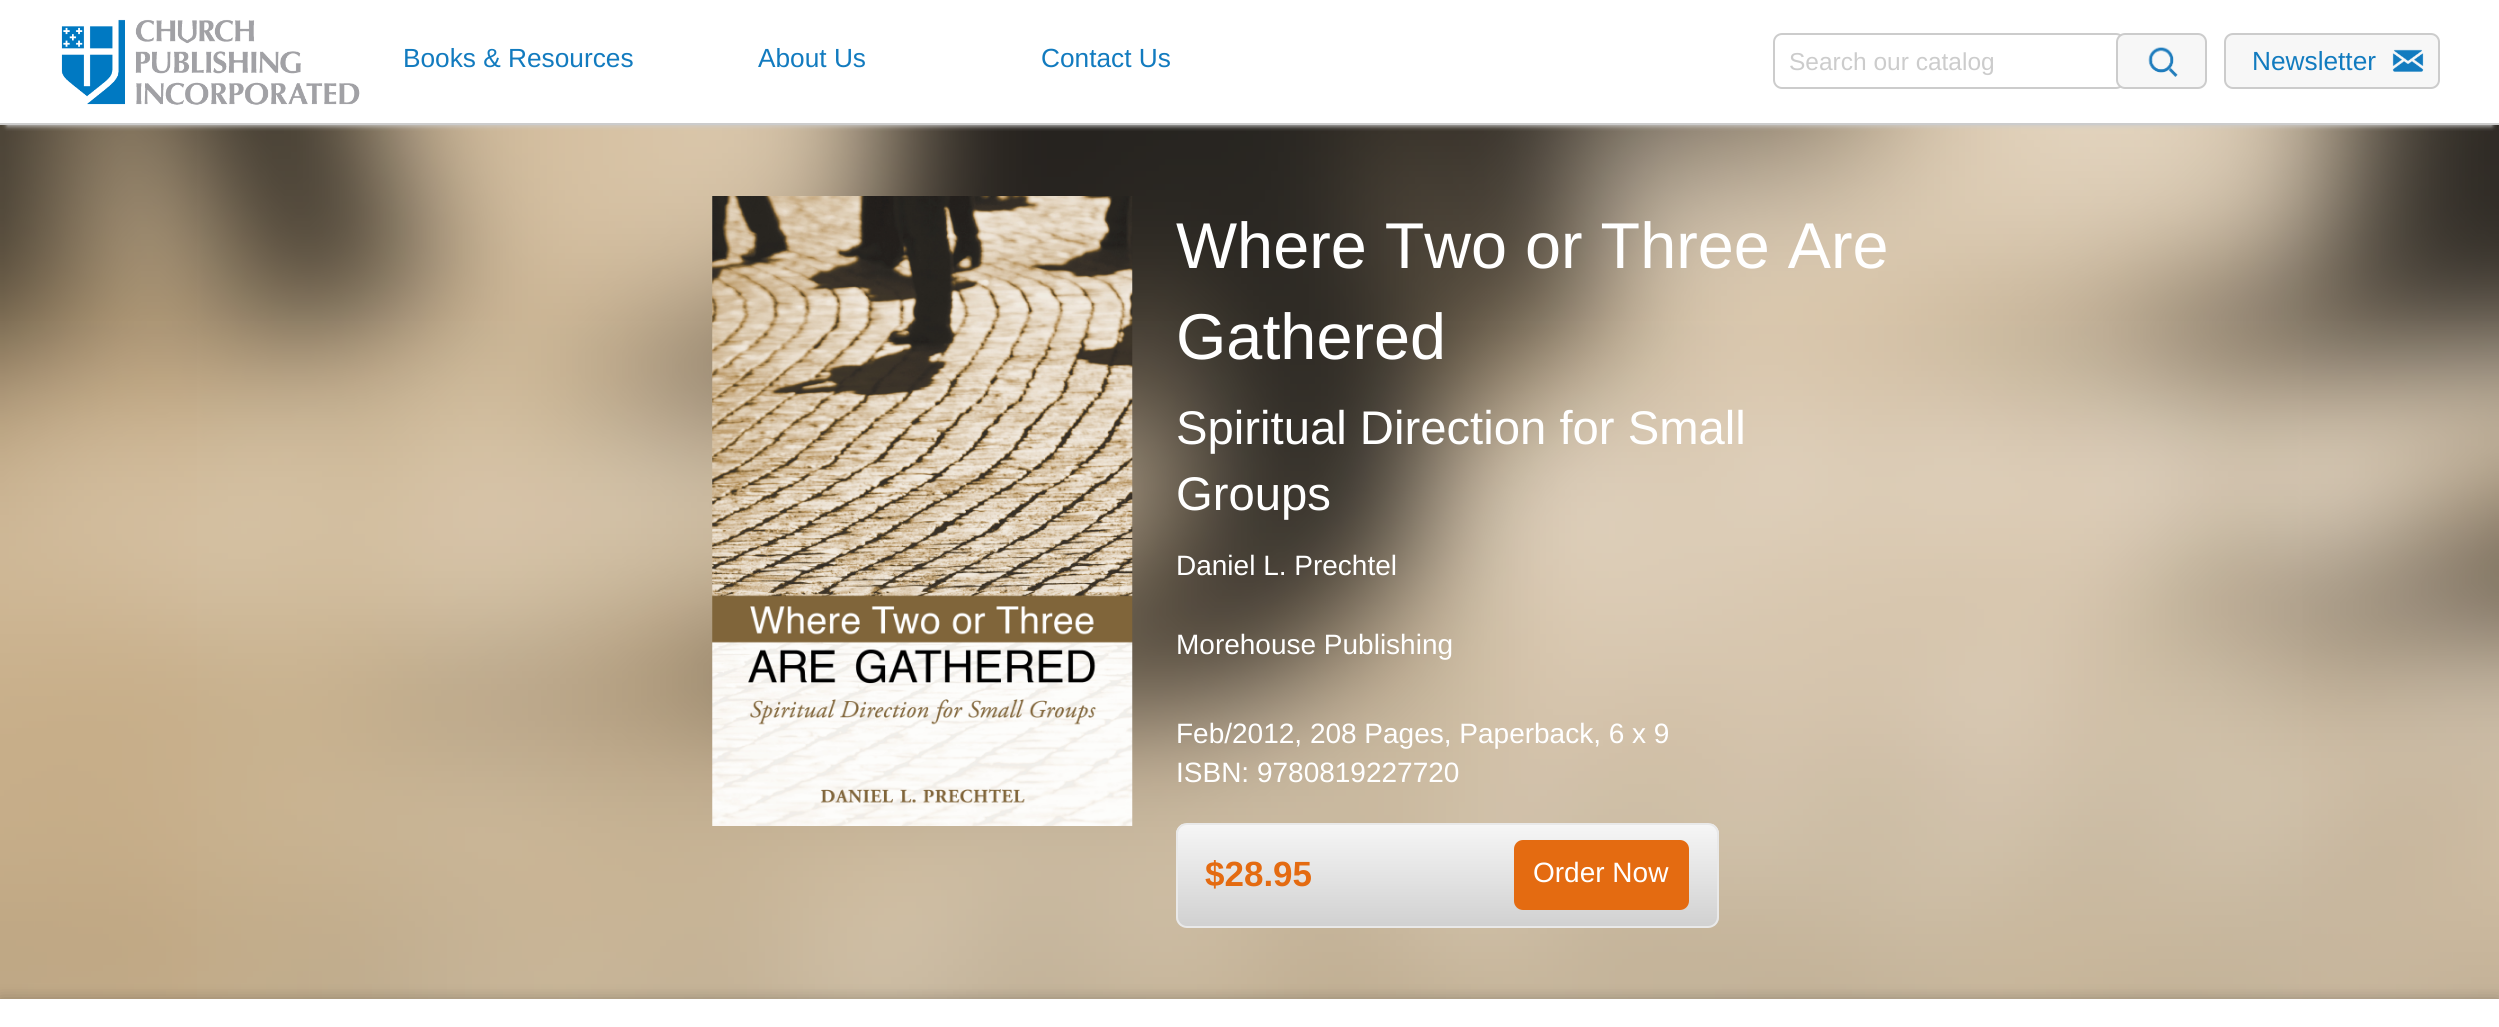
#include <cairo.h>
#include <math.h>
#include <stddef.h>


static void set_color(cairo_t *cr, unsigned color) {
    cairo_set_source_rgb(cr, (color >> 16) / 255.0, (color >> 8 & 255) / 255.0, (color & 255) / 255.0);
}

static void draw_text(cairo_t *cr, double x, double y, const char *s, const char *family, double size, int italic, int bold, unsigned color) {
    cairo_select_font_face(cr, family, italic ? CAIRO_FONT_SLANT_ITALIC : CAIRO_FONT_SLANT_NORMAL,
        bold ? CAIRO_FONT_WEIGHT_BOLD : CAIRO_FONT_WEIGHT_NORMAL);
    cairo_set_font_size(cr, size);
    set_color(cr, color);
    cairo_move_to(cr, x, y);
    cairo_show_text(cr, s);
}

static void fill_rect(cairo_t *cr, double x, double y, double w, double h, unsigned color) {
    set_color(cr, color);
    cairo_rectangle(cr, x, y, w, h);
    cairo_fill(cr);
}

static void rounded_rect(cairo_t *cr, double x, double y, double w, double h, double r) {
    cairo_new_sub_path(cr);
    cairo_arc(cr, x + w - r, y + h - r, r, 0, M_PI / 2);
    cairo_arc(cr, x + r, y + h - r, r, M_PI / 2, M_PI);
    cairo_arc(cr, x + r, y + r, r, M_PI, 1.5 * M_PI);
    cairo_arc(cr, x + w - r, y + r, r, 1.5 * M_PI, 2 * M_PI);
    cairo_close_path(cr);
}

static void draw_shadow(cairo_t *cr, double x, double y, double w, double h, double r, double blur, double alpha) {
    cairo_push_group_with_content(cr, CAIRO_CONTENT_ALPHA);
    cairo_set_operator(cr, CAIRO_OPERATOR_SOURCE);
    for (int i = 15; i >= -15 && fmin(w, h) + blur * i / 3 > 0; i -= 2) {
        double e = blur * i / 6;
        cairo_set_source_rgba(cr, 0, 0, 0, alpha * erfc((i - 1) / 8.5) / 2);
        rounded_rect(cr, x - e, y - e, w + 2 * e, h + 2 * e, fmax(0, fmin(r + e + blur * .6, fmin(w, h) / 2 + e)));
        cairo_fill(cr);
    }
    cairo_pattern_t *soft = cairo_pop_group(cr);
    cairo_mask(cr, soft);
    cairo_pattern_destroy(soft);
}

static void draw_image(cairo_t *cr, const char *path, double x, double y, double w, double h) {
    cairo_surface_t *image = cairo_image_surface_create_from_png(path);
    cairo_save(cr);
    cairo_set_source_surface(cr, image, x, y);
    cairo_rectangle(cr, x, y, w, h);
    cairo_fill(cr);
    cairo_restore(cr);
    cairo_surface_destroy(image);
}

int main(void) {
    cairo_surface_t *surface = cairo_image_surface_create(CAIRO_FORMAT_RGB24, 2499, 1027);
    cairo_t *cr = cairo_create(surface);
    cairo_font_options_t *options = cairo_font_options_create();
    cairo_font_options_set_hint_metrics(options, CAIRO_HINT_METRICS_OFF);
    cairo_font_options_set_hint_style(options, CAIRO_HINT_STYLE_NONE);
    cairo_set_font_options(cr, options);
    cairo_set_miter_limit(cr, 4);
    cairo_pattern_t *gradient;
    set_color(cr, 0xFFFFFF);
    cairo_paint(cr);
    draw_image(cr, "assets/img4.png", 0, 125, 2499, 874);
    cairo_save(cr);
    cairo_rectangle(cr, 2, 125, 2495, 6);
    cairo_clip(cr);
    set_color(cr, 0xCCCCCC);
    draw_shadow(cr, 7, 16, 2485, 110, 0, 2.5, 1);
    cairo_restore(cr);
    fill_rect(cr, 0, 123, 2499, 2, 0xCCCCCC);
    draw_image(cr, "assets/img1.png", 61, 19, 299, 86);
    draw_text(cr, 403, 67, "Books & Resources", "Liberation Sans", 26.25, 0, 0, 0x127BBF);
    draw_text(cr, 758, 67, "About Us", "Liberation Sans", 26.25, 0, 0, 0x127BBF);
    draw_text(cr, 1041, 67, "Contact Us", "Liberation Sans", 26.25, 0, 0, 0x127BBF);
    rounded_rect(cr, 1774, 34, 350, 54, 8);
    set_color(cr, 0xCCCCCC);
    cairo_stroke(cr);
    draw_text(cr, 1789, 70, "Search our catalog", "Liberation Sans", 24.5, 0, 0, 0xCCCCCC);
    set_color(cr, 0xF7F7F7);
    rounded_rect(cr, 2117, 34, 89, 54, 8);
    cairo_fill_preserve(cr);
    set_color(cr, 0xCCCCCC);
    cairo_stroke(cr);
    draw_image(cr, "assets/img2.png", 2148, 47, 30, 30);
    set_color(cr, 0xF7F7F7);
    rounded_rect(cr, 2225, 34, 214, 54, 8);
    cairo_fill_preserve(cr);
    set_color(cr, 0xCCCCCC);
    cairo_stroke(cr);
    draw_image(cr, "assets/img3.png", 2392, 49, 32, 23);
    draw_text(cr, 2252, 70, "Newsletter", "Liberation Sans", 26.25, 0, 0, 0x127BBF);
    draw_image(cr, "assets/img5.png", 712, 196, 421, 630);
    draw_text(cr, 1176, 268, "Where Two or Three Are", "Liberation Sans", 64.75, 0, 0, 0xFFFFFF);
    draw_text(cr, 1176, 359, "Gathered", "Liberation Sans", 64.75, 0, 0, 0xFFFFFF);
    draw_text(cr, 1176, 444, "Spiritual Direction for Small", "Liberation Sans", 47.25, 0, 0, 0xFFFFFF);
    draw_text(cr, 1176, 510, "Groups", "Liberation Sans", 47.25, 0, 0, 0xFFFFFF);
    draw_text(cr, 1176, 575, "Daniel L. Prechtel", "Liberation Sans", 28, 0, 0, 0xFFFFFF);
    draw_text(cr, 1176, 654, "Morehouse Publishing", "Liberation Sans", 28, 0, 0, 0xFFFFFF);
    draw_text(cr, 1176, 743, "Feb/2012, 208 Pages, Paperback, 6 x 9", "Liberation Sans", 28, 0, 0, 0xFFFFFF);
    draw_text(cr, 1176, 782, "ISBN: 9780819227720", "Liberation Sans", 28, 0, 0, 0xFFFFFF);
    cairo_save(cr);
    rounded_rect(cr, 1176, 823, 543, 105, 11);
    cairo_clip(cr);
    gradient = cairo_pattern_create_linear(1447, 824, 1447, 926);
    cairo_pattern_add_color_stop_rgba(gradient, 0, 0.965, 0.965, 0.965, 1);
    cairo_pattern_add_color_stop_rgba(gradient, 1, 0.82, 0.82, 0.82, 1);
    cairo_set_source(cr, gradient);
    cairo_pattern_destroy(gradient);
    cairo_rectangle(cr, 1176, 824, 543, 102);
    cairo_fill(cr);
    cairo_restore(cr);
    rounded_rect(cr, 1177, 824, 541, 103, 10);
    set_color(cr, 0xE9E9E9);
    cairo_stroke(cr);
    draw_text(cr, 1205, 886, "$28.95", "Liberation Sans", 35, 0, 1, 0xE46B11);
    rounded_rect(cr, 1514, 840, 175, 70, 9);
    cairo_fill(cr);
    draw_text(cr, 1533, 882, "Order Now", "Liberation Sans", 28, 0, 0, 0xFFFFFF);
    set_color(cr, 0x000000);
    draw_shadow(cr, 0, 1001, 2499, 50, 0, 8, 0.3);
    fill_rect(cr, 0, 999, 2499, 28, 0xFFFFFF);
    cairo_surface_write_to_png(surface, "output.png");
    cairo_font_options_destroy(options);
    cairo_destroy(cr);
    cairo_surface_destroy(surface);
    return 0;
}
